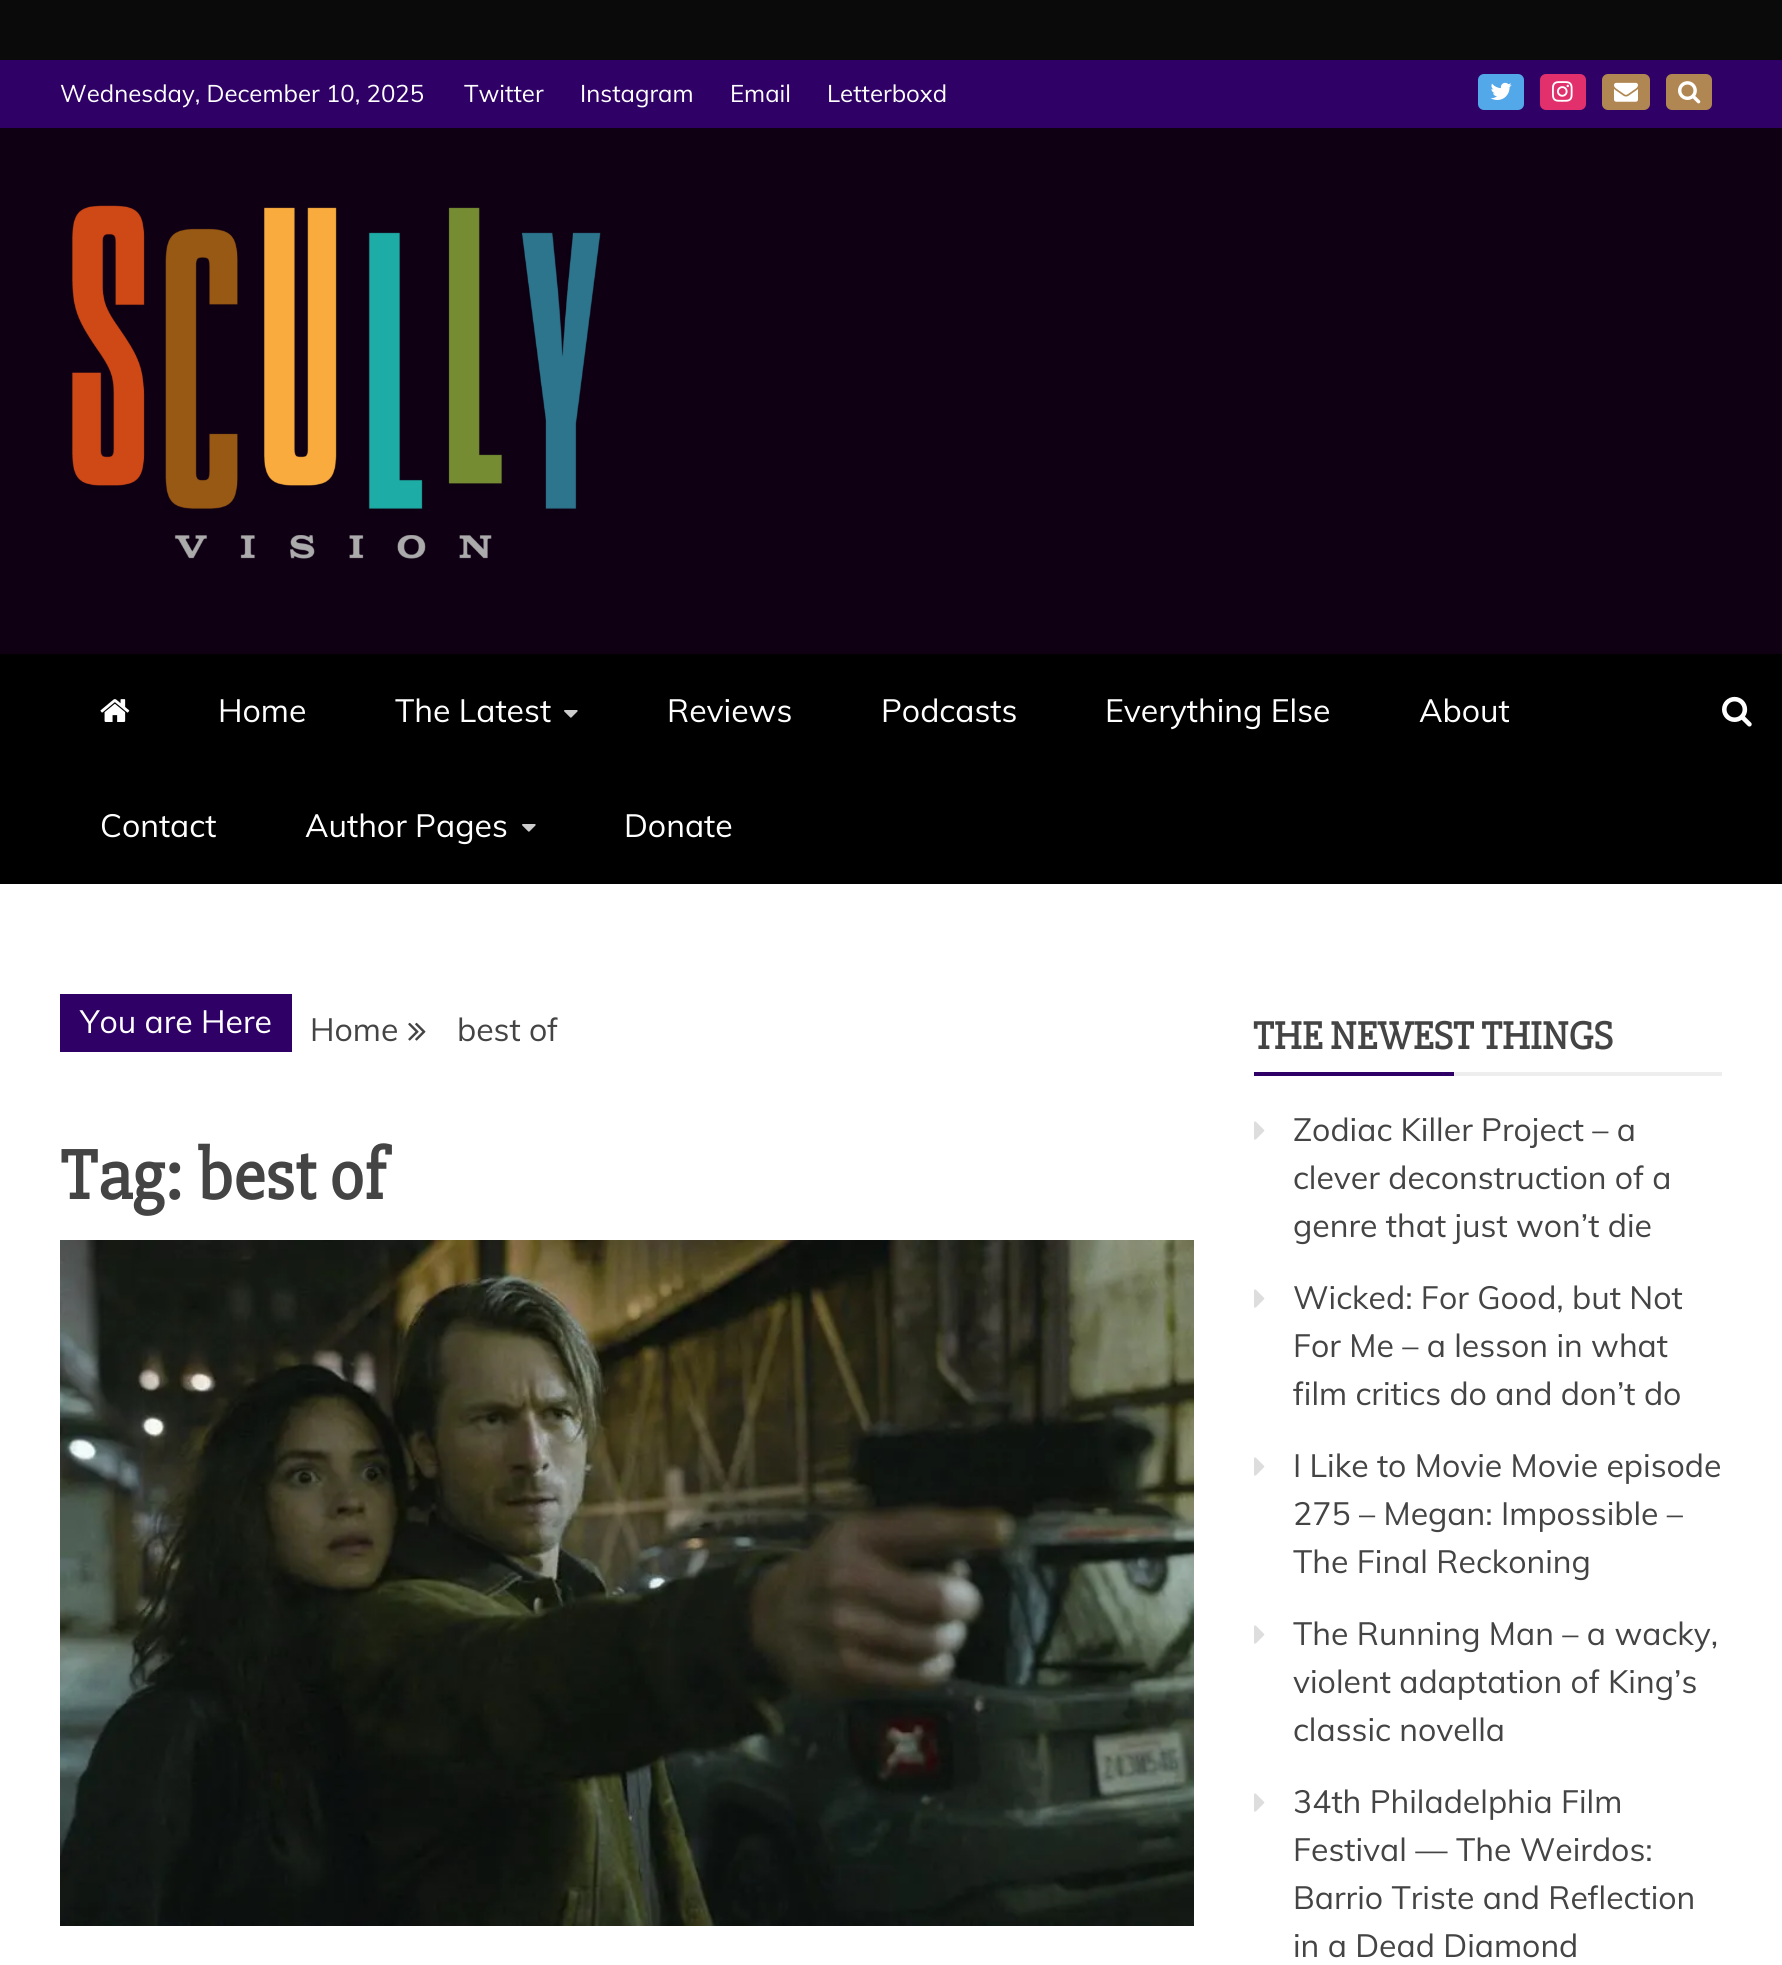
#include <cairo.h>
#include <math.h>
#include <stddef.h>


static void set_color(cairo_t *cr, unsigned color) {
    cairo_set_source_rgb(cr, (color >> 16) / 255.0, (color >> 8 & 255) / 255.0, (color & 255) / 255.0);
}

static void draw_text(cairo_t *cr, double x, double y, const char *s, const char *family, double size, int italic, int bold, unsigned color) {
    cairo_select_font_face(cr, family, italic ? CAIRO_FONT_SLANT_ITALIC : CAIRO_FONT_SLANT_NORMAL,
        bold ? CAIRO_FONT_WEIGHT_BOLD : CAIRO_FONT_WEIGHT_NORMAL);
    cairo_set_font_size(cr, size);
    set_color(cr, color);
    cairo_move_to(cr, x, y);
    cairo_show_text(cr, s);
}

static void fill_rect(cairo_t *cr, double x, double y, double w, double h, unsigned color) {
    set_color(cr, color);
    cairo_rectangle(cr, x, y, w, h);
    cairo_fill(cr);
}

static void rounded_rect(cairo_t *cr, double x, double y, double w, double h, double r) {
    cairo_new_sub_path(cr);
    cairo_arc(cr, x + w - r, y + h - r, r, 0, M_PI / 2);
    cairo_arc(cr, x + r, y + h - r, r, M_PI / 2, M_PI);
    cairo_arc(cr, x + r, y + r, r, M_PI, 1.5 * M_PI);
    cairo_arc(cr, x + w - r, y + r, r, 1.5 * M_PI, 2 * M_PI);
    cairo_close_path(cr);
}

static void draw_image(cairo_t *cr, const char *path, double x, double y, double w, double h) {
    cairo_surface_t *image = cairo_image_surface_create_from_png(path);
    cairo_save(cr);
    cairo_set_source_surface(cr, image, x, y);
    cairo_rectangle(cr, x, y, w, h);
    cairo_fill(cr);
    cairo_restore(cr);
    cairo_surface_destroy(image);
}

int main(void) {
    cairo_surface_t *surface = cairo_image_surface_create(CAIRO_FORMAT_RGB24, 1782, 1965);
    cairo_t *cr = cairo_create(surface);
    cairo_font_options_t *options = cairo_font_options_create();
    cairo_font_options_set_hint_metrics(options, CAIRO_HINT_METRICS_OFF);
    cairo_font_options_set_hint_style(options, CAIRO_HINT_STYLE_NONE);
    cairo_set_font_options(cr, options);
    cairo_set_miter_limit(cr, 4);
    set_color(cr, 0x0A0A0A);
    cairo_paint(cr);
    fill_rect(cr, 0, 884, 1782, 1081, 0xFFFFFF);
    fill_rect(cr, 0, 60, 1782, 68, 0x2F0066);
    draw_text(cr, 60, 102, "Wednesday, December 10, 2025", "Muli", 24, 0, 0, 0xFFFFFF);
    draw_text(cr, 464, 102, "Twitter", "Muli", 24, 0, 0, 0xFFFFFF);
    draw_text(cr, 580, 102, "Instagram", "Muli", 24, 0, 0, 0xFFFFFF);
    draw_text(cr, 730, 102, "Email", "Muli", 24, 0, 0, 0xFFFFFF);
    draw_text(cr, 827, 102, "Letterboxd", "Muli", 24, 0, 0, 0xFFFFFF);
    set_color(cr, 0x53A8EA);
    rounded_rect(cr, 1478, 74, 46, 36, 6);
    cairo_fill(cr);
    draw_image(cr, "assets/img1.png", 1490, 82, 22, 18);
    set_color(cr, 0xE1306C);
    rounded_rect(cr, 1540, 74, 46, 36, 6);
    cairo_fill(cr);
    draw_image(cr, "assets/img2.png", 1552, 81, 21, 21);
    set_color(cr, 0xB08653);
    rounded_rect(cr, 1602, 74, 48, 36, 6);
    cairo_fill(cr);
    draw_image(cr, "assets/img3.png", 1614, 82, 24, 20);
    rounded_rect(cr, 1666, 74, 46, 36, 6);
    cairo_fill(cr);
    draw_image(cr, "assets/img4.png", 1678, 81, 23, 23);
    fill_rect(cr, 0, 128, 1782, 526, 0x100014);
    draw_image(cr, "assets/img5.png", 72, 205, 529, 354);
    fill_rect(cr, 0, 654, 1782, 230, 0x000000);
    draw_image(cr, "assets/img6.png", 100, 699, 30, 23);
    draw_text(cr, 218, 722, "Home", "Muli", 32, 0, 0, 0xFFFFFF);
    draw_text(cr, 395, 722, "The Latest", "Muli", 32, 0, 0, 0xFFFFFF);
    draw_image(cr, "assets/img7.png", 564, 710, 14, 8);
    draw_text(cr, 667, 722, "Reviews", "Muli", 32, 0, 0, 0xFFFFFF);
    draw_text(cr, 881, 722, "Podcasts", "Muli", 32, 0, 0, 0xFFFFFF);
    draw_text(cr, 1105, 722, "Everything Else", "Muli", 32, 0, 0, 0xFFFFFF);
    draw_text(cr, 1419, 722, "About", "Muli", 32, 0, 0, 0xFFFFFF);
    draw_text(cr, 100, 837, "Contact", "Muli", 32, 0, 0, 0xFFFFFF);
    draw_text(cr, 305, 837, "Author Pages", "Muli", 32, 0, 0, 0xFFFFFF);
    draw_image(cr, "assets/img7.png", 522, 824, 14, 8);
    draw_text(cr, 624, 837, "Donate", "Muli", 32, 0, 0, 0xFFFFFF);
    draw_image(cr, "assets/img8.png", 1722, 696, 30, 31);
    fill_rect(cr, 60, 994, 232, 58, 0x2F0066);
    draw_text(cr, 80, 1033, "You are Here", "Muli", 32, 0, 0, 0xFFFFFF);
    draw_text(cr, 310, 1041, "Home", "Muli", 32, 0, 0, 0x444444);
    draw_image(cr, "assets/img9.png", 408, 1022, 18, 19);
    draw_text(cr, 457, 1041, "best of", "Muli", 32, 0, 0, 0x444444);
    draw_text(cr, 60, 1199, "Tag: best of", "Slabo 27px", 72, 0, 1, 0x444444);
    draw_image(cr, "assets/img10.png", 60, 1240, 1134, 686);
    fill_rect(cr, 1454, 1072, 268, 4, 0xEEEEEE);
    draw_text(cr, 1253, 1049, "THE NEWEST THINGS", "Slabo 27px", 40, 0, 1, 0x444444);
    fill_rect(cr, 1254, 1072, 200, 4, 0x2F0066);
    draw_image(cr, "assets/img11.png", 1254, 1121, 11, 19);
    draw_text(cr, 1293, 1141, "Zodiac Killer Project – a", "Muli", 32, 0, 0, 0x444444);
    draw_text(cr, 1293, 1189, "clever deconstruction of a", "Muli", 32, 0, 0, 0x444444);
    draw_text(cr, 1293, 1237, "genre that just won’t die", "Muli", 32, 0, 0, 0x444444);
    draw_image(cr, "assets/img11.png", 1254, 1289, 11, 19);
    draw_text(cr, 1293, 1309, "Wicked: For Good, but Not", "Muli", 32, 0, 0, 0x444444);
    draw_text(cr, 1293, 1357, "For Me – a lesson in what", "Muli", 32, 0, 0, 0x444444);
    draw_text(cr, 1293, 1405, "film critics do and don’t do", "Muli", 32, 0, 0, 0x444444);
    draw_image(cr, "assets/img11.png", 1254, 1457, 11, 19);
    draw_text(cr, 1293, 1477, "I Like to Movie Movie episode", "Muli", 32, 0, 0, 0x444444);
    draw_text(cr, 1293, 1525, "275 – Megan: Impossible –", "Muli", 32, 0, 0, 0x444444);
    draw_text(cr, 1293, 1573, "The Final Reckoning", "Muli", 32, 0, 0, 0x444444);
    draw_image(cr, "assets/img11.png", 1254, 1625, 11, 19);
    draw_text(cr, 1293, 1645, "The Running Man – a wacky,", "Muli", 32, 0, 0, 0x444444);
    draw_text(cr, 1293, 1693, "violent adaptation of King’s", "Muli", 32, 0, 0, 0x444444);
    draw_text(cr, 1293, 1741, "classic novella", "Muli", 32, 0, 0, 0x444444);
    draw_image(cr, "assets/img11.png", 1254, 1793, 11, 19);
    draw_text(cr, 1293, 1813, "34th Philadelphia Film", "Muli", 32, 0, 0, 0x444444);
    draw_text(cr, 1293, 1861, "Festival — The Weirdos:", "Muli", 32, 0, 0, 0x444444);
    draw_text(cr, 1293, 1909, "Barrio Triste and Reflection", "Muli", 32, 0, 0, 0x444444);
    draw_text(cr, 1293, 1957, "in a Dead Diamond", "Muli", 32, 0, 0, 0x444444);
    cairo_surface_write_to_png(surface, "output.png");
    cairo_font_options_destroy(options);
    cairo_destroy(cr);
    cairo_surface_destroy(surface);
    return 0;
}
